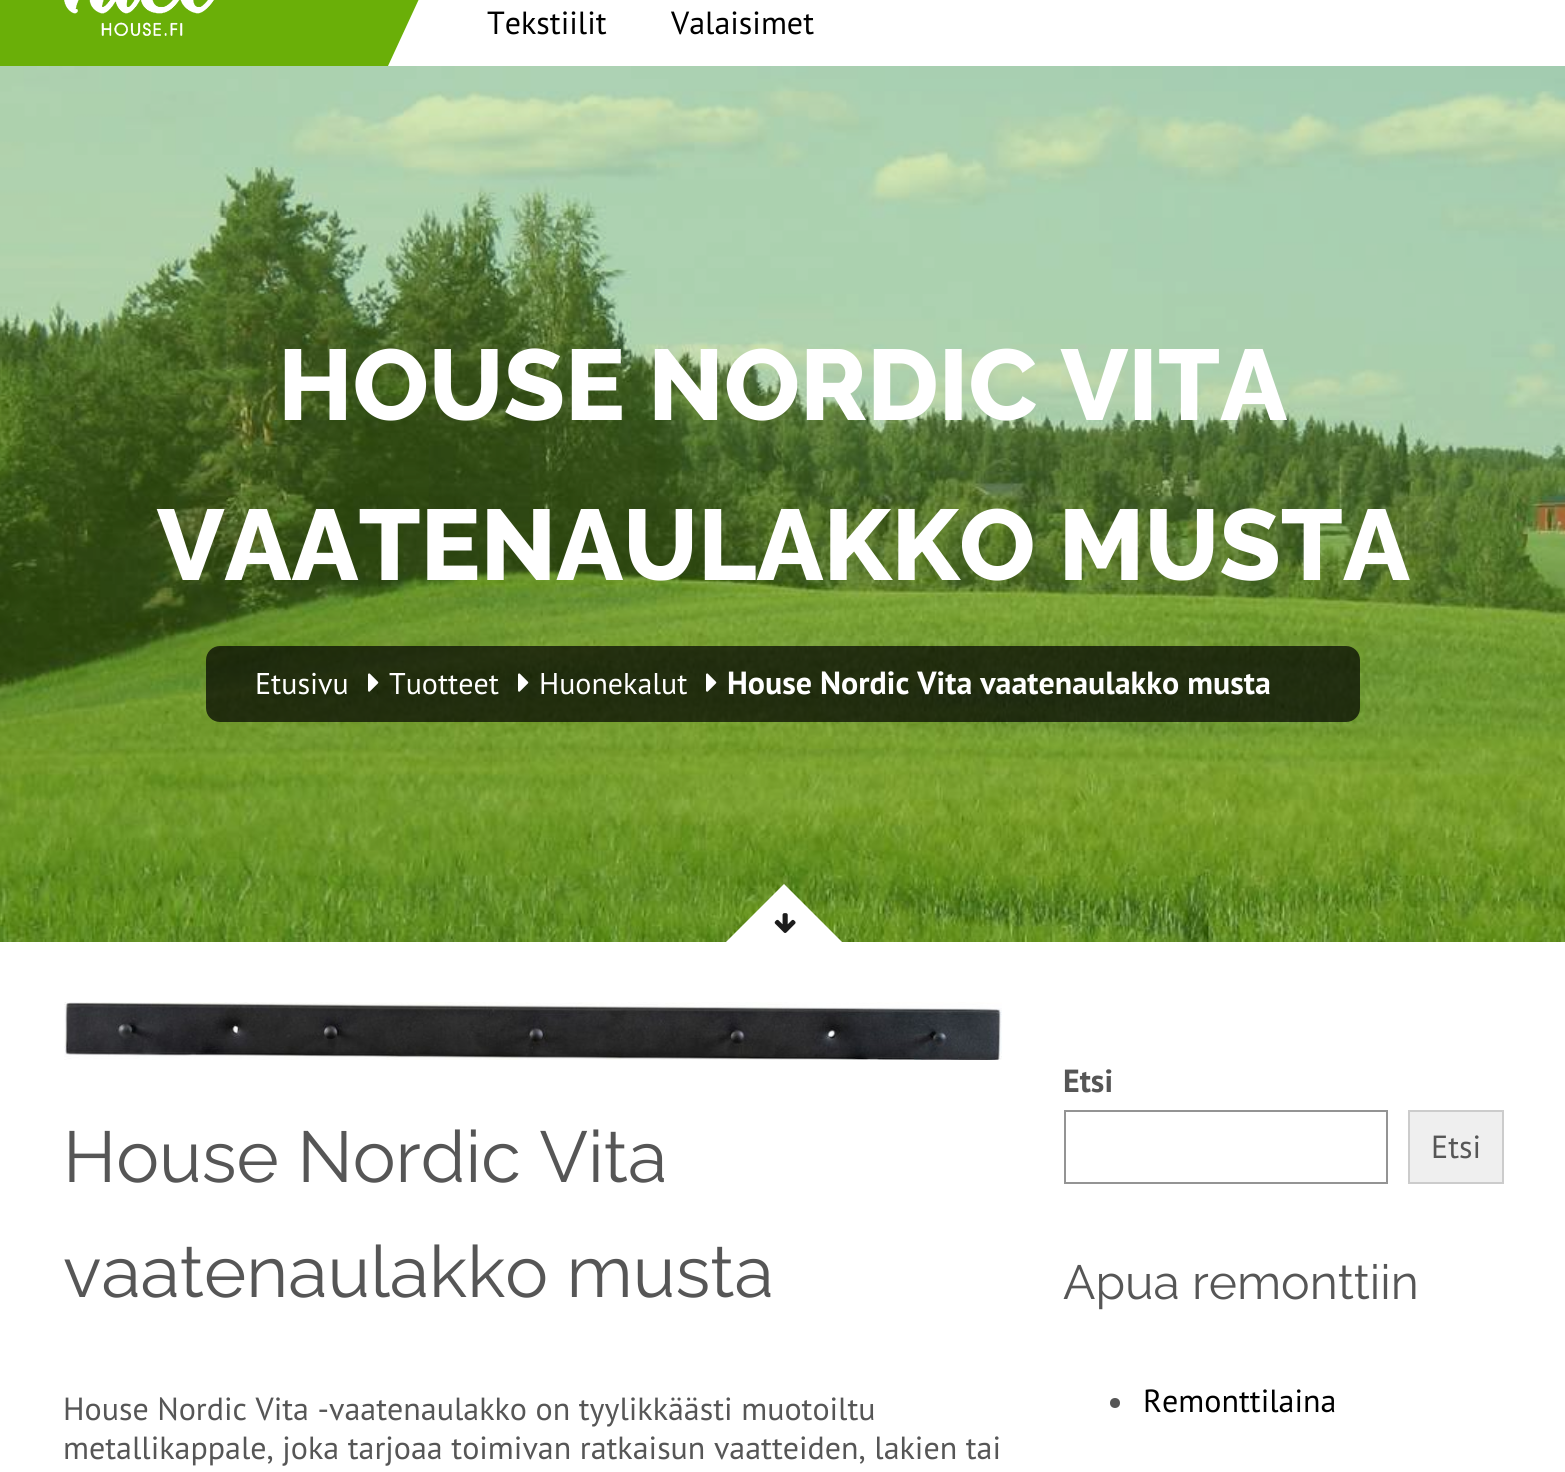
#include <cairo.h>
#include <math.h>
#include <stddef.h>


static void set_color(cairo_t *cr, unsigned color) {
    cairo_set_source_rgb(cr, (color >> 16) / 255.0, (color >> 8 & 255) / 255.0, (color & 255) / 255.0);
}

static void draw_text(cairo_t *cr, double x, double y, const char *s, const char *family, double size, int italic, int bold, unsigned color) {
    cairo_select_font_face(cr, family, italic ? CAIRO_FONT_SLANT_ITALIC : CAIRO_FONT_SLANT_NORMAL,
        bold ? CAIRO_FONT_WEIGHT_BOLD : CAIRO_FONT_WEIGHT_NORMAL);
    cairo_set_font_size(cr, size);
    set_color(cr, color);
    cairo_move_to(cr, x, y);
    cairo_show_text(cr, s);
}

static void fill_rect(cairo_t *cr, double x, double y, double w, double h, unsigned color) {
    set_color(cr, color);
    cairo_rectangle(cr, x, y, w, h);
    cairo_fill(cr);
}

static void rounded_rect(cairo_t *cr, double x, double y, double w, double h, double r) {
    cairo_new_sub_path(cr);
    cairo_arc(cr, x + w - r, y + h - r, r, 0, M_PI / 2);
    cairo_arc(cr, x + r, y + h - r, r, M_PI / 2, M_PI);
    cairo_arc(cr, x + r, y + r, r, M_PI, 1.5 * M_PI);
    cairo_arc(cr, x + w - r, y + r, r, 1.5 * M_PI, 2 * M_PI);
    cairo_close_path(cr);
}

static void draw_image(cairo_t *cr, const char *path, double x, double y, double w, double h) {
    cairo_surface_t *image = cairo_image_surface_create_from_png(path);
    cairo_save(cr);
    cairo_set_source_surface(cr, image, x, y);
    cairo_rectangle(cr, x, y, w, h);
    cairo_fill(cr);
    cairo_restore(cr);
    cairo_surface_destroy(image);
}

int main(void) {
    cairo_surface_t *surface = cairo_image_surface_create(CAIRO_FORMAT_RGB24, 1565, 1472);
    cairo_t *cr = cairo_create(surface);
    cairo_font_options_t *options = cairo_font_options_create();
    cairo_font_options_set_hint_metrics(options, CAIRO_HINT_METRICS_OFF);
    cairo_font_options_set_hint_style(options, CAIRO_HINT_STYLE_NONE);
    cairo_set_font_options(cr, options);
    cairo_set_miter_limit(cr, 4);
    set_color(cr, 0xFFFFFF);
    cairo_paint(cr);
    fill_rect(cr, 0, 0, 219, 66, 0x6AAF08);
    draw_image(cr, "assets/img1.png", 64, 0, 150, 36);
    cairo_new_path(cr);
    cairo_move_to(cr, 262, -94);
    cairo_line_to(cr, 462, -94);
    cairo_line_to(cr, 388, 66);
    cairo_line_to(cr, 188, 66);
    cairo_close_path(cr);
    cairo_fill(cr);
    draw_text(cr, 487, 34, "Tekstiilit", "PT Sans", 32, 0, 0, 0x000000);
    draw_text(cr, 671, 34, "Valaisimet", "PT Sans", 32, 0, 0, 0x000000);
    draw_image(cr, "assets/img2.png", 0, 66, 1565, 876);
    draw_text(cr, 278, 420, "HOUSE NORDIC VITA", "Raleway ExtraBold", 100, 0, 0, 0xFFFFFF);
    draw_text(cr, 157, 580, "VAATENAULAKKO MUSTA", "Raleway ExtraBold", 100, 0, 0, 0xFFFFFF);
    cairo_set_source_rgba(cr, 0, 0, 0, 0.7);
    rounded_rect(cr, 206, 646, 1154, 76, 14);
    cairo_fill(cr);
    draw_text(cr, 255, 694, "Etusivu", "PT Sans", 30, 0, 0, 0xFFFFFF);
    draw_image(cr, "assets/img3.png", 368, 673, 11, 19);
    draw_text(cr, 389, 694, "Tuotteet", "PT Sans", 30, 0, 0, 0xFFFFFF);
    draw_image(cr, "assets/img4.png", 518, 673, 11, 19);
    draw_text(cr, 539, 694, "Huonekalut", "PT Sans", 30, 0, 0, 0xFFFFFF);
    draw_image(cr, "assets/img5.png", 706, 673, 11, 19);
    draw_text(cr, 727, 694, "House Nordic Vita vaatenaulakko musta", "PT Sans", 32, 0, 1, 0xFFFFFF);
    cairo_new_path(cr);
    cairo_move_to(cr, 844, 944);
    cairo_line_to(cr, 724, 944);
    cairo_line_to(cr, 784, 884);
    cairo_close_path(cr);
    cairo_fill(cr);
    draw_image(cr, "assets/img6.png", 774, 913, 22, 20);
    draw_image(cr, "assets/img7.png", 64, 1002, 938, 58);
    draw_text(cr, 63, 1182, "House Nordic Vita", "Raleway", 72, 0, 0, 0x565656);
    draw_text(cr, 63, 1297, "vaatenaulakko musta", "Raleway", 72, 0, 0, 0x565656);
    draw_text(cr, 63, 1420, "House Nordic Vita -vaatenaulakko on tyylikkäästi muotoiltu", "PT Sans", 32, 0, 0, 0x565656);
    draw_text(cr, 63, 1459, "metallikappale, joka tarjoaa toimivan ratkaisun vaatteiden, lakien tai", "PT Sans", 32, 0, 0, 0x565656);
    draw_text(cr, 1063, 1092, "Etsi", "PT Sans", 32, 0, 1, 0x565656);
    cairo_rectangle(cr, 1065, 1111, 322, 72);
    set_color(cr, 0x949494);
    cairo_stroke(cr);
    set_color(cr, 0xEFEFEF);
    cairo_rectangle(cr, 1409, 1111, 94, 72);
    cairo_fill_preserve(cr);
    set_color(cr, 0xCCCCCC);
    cairo_stroke(cr);
    draw_text(cr, 1431, 1158, "Etsi", "PT Sans", 32, 0, 0, 0x565656);
    draw_text(cr, 1063, 1299, "Apua remonttiin", "Raleway", 48, 0, 0, 0x565656);
    cairo_new_path(cr);
    cairo_arc(cr, 1115, 1403, 5, 0, 2 * M_PI);
    cairo_fill(cr);
    draw_text(cr, 1143, 1412, "Remonttilaina", "PT Sans", 32, 0, 0, 0x000000);
    cairo_surface_write_to_png(surface, "output.png");
    cairo_font_options_destroy(options);
    cairo_destroy(cr);
    cairo_surface_destroy(surface);
    return 0;
}
